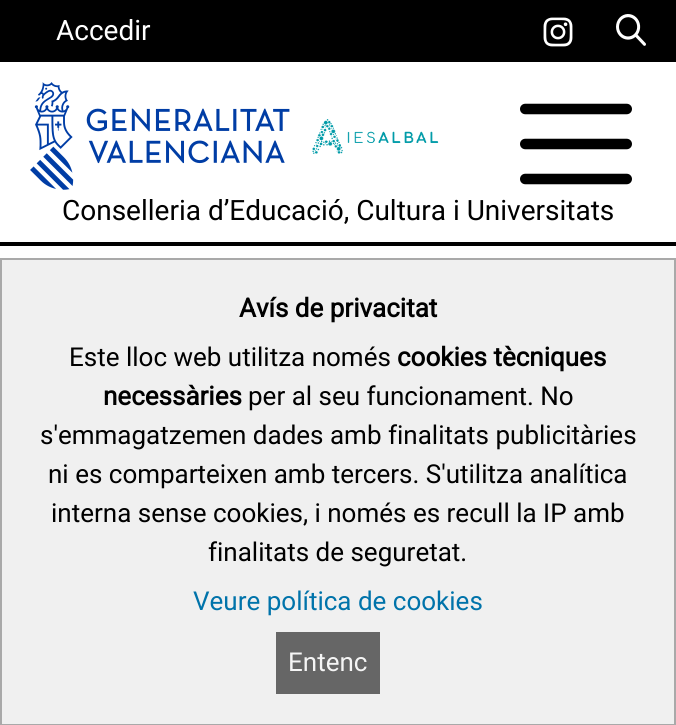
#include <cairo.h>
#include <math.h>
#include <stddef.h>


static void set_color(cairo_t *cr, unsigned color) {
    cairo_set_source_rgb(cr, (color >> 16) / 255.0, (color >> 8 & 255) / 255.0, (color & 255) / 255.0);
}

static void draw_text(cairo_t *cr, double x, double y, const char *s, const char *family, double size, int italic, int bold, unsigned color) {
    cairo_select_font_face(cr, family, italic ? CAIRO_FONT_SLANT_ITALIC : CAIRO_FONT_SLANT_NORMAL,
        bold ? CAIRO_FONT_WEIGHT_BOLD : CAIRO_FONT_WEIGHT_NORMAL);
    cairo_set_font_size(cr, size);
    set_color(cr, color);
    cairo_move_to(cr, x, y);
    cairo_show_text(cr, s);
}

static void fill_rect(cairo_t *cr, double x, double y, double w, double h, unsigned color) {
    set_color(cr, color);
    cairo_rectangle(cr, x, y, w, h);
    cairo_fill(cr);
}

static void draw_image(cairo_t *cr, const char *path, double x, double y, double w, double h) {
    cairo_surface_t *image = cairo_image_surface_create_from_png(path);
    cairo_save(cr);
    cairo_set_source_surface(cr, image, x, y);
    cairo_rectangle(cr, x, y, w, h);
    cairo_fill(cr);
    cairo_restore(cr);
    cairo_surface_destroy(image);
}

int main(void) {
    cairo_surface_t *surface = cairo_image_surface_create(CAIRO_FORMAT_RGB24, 676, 725);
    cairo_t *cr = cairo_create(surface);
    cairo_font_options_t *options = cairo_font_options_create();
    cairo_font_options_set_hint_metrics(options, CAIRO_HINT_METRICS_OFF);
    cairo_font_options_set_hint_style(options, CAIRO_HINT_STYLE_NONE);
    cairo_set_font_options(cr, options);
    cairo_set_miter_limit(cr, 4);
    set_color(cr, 0xFFFFFF);
    cairo_paint(cr);
    fill_rect(cr, 0, 242, 676, 4, 0x000000);
    fill_rect(cr, 0, 0, 676, 62, 0x000000);
    draw_text(cr, 56, 40, "Accedir", "Roboto", 28, 0, 0, 0xFFFFFF);
    draw_image(cr, "assets/img1.png", 543, 17, 30, 30);
    draw_image(cr, "assets/img2.png", 616, 14, 30, 32);
    draw_image(cr, "assets/img3.png", 30, 82, 260, 108);
    draw_image(cr, "assets/img4.png", 312, 119, 127, 35);
    draw_text(cr, 62, 220, "Conselleria d’Educació, Cultura i Universitats", "Roboto", 28, 0, 0, 0x000000);
    draw_image(cr, "assets/img5.png", 520, 103, 112, 82);
    set_color(cr, 0xF0F0F0);
    cairo_rectangle(cr, 1, 259, 674, 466);
    cairo_fill_preserve(cr);
    set_color(cr, 0xA9A9A9);
    cairo_stroke(cr);
    draw_text(cr, 239, 317, "Avís de privacitat", "Roboto", 26, 0, 1, 0x000000);
    draw_text(cr, 69, 366, "Este lloc web utilitza només", "Roboto", 26, 0, 0, 0x000000);
    draw_text(cr, 397, 366, "cookies tècniques", "Roboto", 26, 0, 1, 0x000000);
    draw_text(cr, 103, 405, "necessàries", "Roboto", 26, 0, 1, 0x000000);
    draw_text(cr, 248, 405, "per al seu funcionament. No", "Roboto", 26, 0, 0, 0x000000);
    draw_text(cr, 40, 444, "s'emmagatzemen dades amb finalitats publicitàries", "Roboto", 26, 0, 0, 0x000000);
    draw_text(cr, 48, 483, "ni es comparteixen amb tercers. S'utilitza analítica", "Roboto", 26, 0, 0, 0x000000);
    draw_text(cr, 51, 522, "interna sense cookies, i només es recull la IP amb", "Roboto", 26, 0, 0, 0x000000);
    draw_text(cr, 208, 561, "finalitats de seguretat.", "Roboto", 26, 0, 0, 0x000000);
    draw_text(cr, 193, 610, "Veure política de cookies", "Roboto", 26, 0, 0, 0x0073AA);
    fill_rect(cr, 276, 632, 104, 62, 0x666666);
    draw_text(cr, 288, 671, "Entenc", "Roboto", 26, 0, 0, 0xF5F5F5);
    cairo_surface_write_to_png(surface, "output.png");
    cairo_font_options_destroy(options);
    cairo_destroy(cr);
    cairo_surface_destroy(surface);
    return 0;
}
